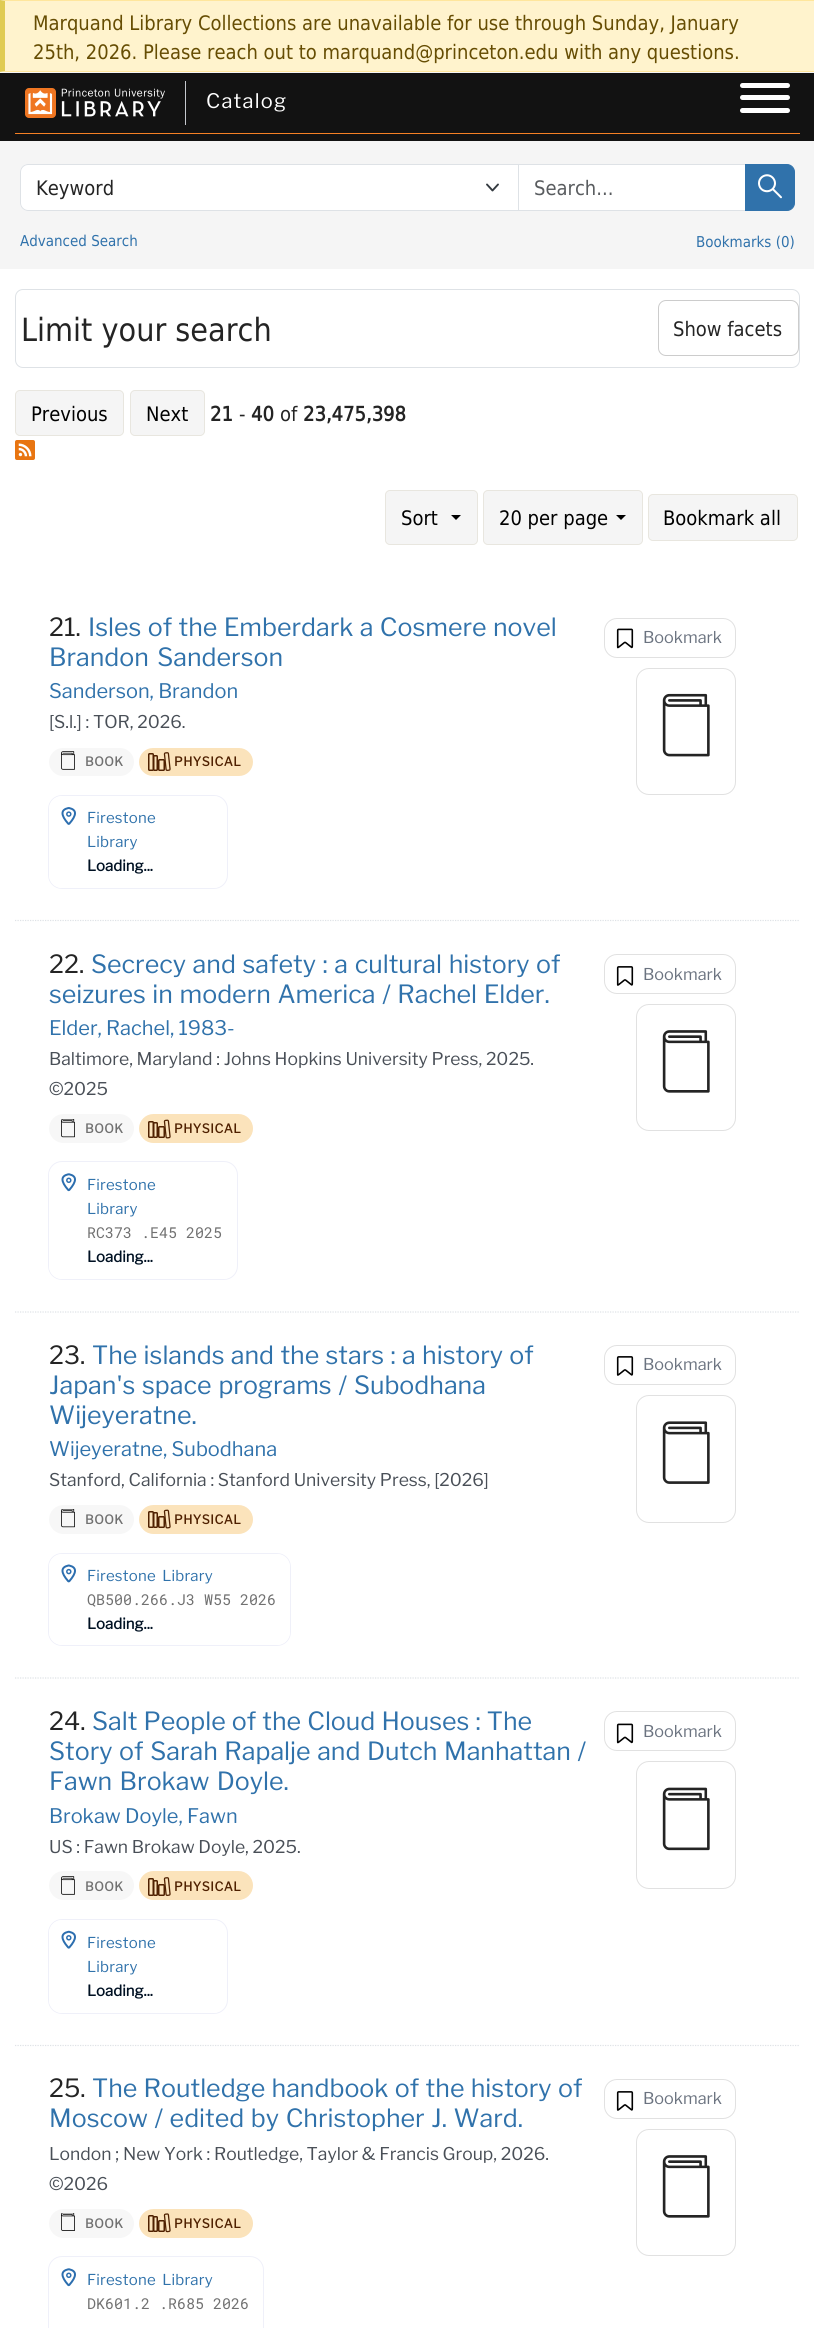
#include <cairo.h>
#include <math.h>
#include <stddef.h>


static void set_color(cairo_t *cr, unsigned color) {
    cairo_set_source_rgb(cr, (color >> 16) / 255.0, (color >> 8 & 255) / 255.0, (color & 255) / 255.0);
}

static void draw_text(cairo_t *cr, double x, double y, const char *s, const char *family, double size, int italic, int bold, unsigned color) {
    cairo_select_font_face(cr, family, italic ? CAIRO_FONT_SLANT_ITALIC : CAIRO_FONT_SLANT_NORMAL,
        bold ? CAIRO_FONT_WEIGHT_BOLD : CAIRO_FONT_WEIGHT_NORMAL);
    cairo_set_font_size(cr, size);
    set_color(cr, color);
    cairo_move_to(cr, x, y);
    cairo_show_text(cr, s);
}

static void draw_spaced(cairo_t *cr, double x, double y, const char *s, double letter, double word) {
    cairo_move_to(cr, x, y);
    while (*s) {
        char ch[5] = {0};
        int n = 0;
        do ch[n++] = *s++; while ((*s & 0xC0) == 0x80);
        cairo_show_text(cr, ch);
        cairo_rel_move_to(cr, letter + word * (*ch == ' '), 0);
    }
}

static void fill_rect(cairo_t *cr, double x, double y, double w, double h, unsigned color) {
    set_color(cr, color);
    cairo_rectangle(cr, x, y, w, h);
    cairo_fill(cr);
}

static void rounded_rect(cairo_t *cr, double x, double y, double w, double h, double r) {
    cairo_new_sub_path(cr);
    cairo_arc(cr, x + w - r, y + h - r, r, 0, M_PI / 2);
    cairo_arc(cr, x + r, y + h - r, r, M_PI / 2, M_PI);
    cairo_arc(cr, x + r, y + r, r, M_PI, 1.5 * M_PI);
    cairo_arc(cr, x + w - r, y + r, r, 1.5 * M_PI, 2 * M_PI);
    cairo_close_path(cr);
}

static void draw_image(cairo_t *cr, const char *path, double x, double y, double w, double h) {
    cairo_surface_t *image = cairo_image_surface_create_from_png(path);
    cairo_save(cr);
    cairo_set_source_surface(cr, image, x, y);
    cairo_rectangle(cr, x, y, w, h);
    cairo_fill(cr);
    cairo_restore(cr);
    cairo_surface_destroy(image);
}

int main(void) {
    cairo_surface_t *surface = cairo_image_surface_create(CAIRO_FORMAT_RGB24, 814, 2328);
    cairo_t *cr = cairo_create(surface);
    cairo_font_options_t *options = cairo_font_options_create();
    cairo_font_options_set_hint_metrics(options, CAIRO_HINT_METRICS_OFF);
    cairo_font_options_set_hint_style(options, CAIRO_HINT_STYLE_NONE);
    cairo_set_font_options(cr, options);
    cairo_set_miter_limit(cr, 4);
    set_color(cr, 0xF5F5F5);
    cairo_paint(cr);
    fill_rect(cr, 5, 1, 809, 70, 0xFFF3CD);
    set_color(cr, 0xFFE69C);
    cairo_new_path(cr);
    cairo_move_to(cr, 0, 0);
    cairo_line_to(cr, 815, 0);
    cairo_line_to(cr, 814, 1);
    cairo_line_to(cr, 5, 1);
    cairo_close_path(cr);
    cairo_fill(cr);
    cairo_new_path(cr);
    cairo_move_to(cr, 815, 72);
    cairo_line_to(cr, 0, 72);
    cairo_line_to(cr, 5, 71);
    cairo_line_to(cr, 814, 71);
    cairo_close_path(cr);
    cairo_fill(cr);
    set_color(cr, 0xE0CB52);
    cairo_new_path(cr);
    cairo_move_to(cr, 0, 72);
    cairo_line_to(cr, 0, 0);
    cairo_line_to(cr, 5, 1);
    cairo_line_to(cr, 5, 71);
    cairo_close_path(cr);
    cairo_fill(cr);
    draw_text(cr, 33, 30, "Marquand Library Collections are unavailable for use through Sunday, January", "DejaVu Sans", 20, 0, 0, 0x664D03);
    draw_text(cr, 33, 59, "25th, 2026. Please reach out to marquand@princeton.edu with any questions.", "DejaVu Sans", 20, 0, 0, 0x664D03);
    fill_rect(cr, 0, 73, 814, 68, 0x121212);
    fill_rect(cr, 15, 133, 785, 1, 0xF58025);
    draw_image(cr, "assets/img1.png", 25, 88, 140, 30);
    fill_rect(cr, 185, 81, 1, 44, 0xC5C8CE);
    cairo_select_font_face(cr, "Libre Franklin", CAIRO_FONT_SLANT_NORMAL, CAIRO_FONT_WEIGHT_NORMAL);
    set_color(cr, 0xFFFFFF);
    draw_spaced(cr, 206, 108, "Catalog", 1.25, 0);
    rounded_rect(cr, 740, 95, 50, 5, 2.5);
    cairo_fill(cr);
    rounded_rect(cr, 740, 83, 50, 5, 2.5);
    cairo_fill(cr);
    rounded_rect(cr, 740, 108, 50, 5, 2.5);
    cairo_fill(cr);
    cairo_rectangle(cr, 518.5, 164.5, 227, 46);
    cairo_fill_preserve(cr);
    set_color(cr, 0xDEE2E6);
    cairo_set_line_width(cr, 1);
    cairo_stroke(cr);
    set_color(cr, 0xFFFFFF);
    cairo_new_path(cr);
    cairo_move_to(cr, 28, 164);
    cairo_line_to(cr, 519, 164);
    cairo_line_to(cr, 519, 211);
    cairo_line_to(cr, 28, 211);
    cairo_curve_to(cr, 23.5, 211, 20, 207.5, 20, 203);
    cairo_line_to(cr, 20, 172);
    cairo_curve_to(cr, 20, 167.5, 23.5, 164, 28, 164);
    cairo_close_path(cr);
    cairo_fill(cr);
    cairo_new_path(cr);
    cairo_move_to(cr, 487, 184.5);
    cairo_line_to(cr, 492.5, 190.5);
    cairo_line_to(cr, 498, 184.5);
    set_color(cr, 0x343A40);
    cairo_set_line_width(cr, 1.9);
    cairo_set_line_cap(cr, CAIRO_LINE_CAP_ROUND);
    cairo_set_line_join(cr, CAIRO_LINE_JOIN_ROUND);
    cairo_stroke(cr);
    cairo_new_path(cr);
    cairo_move_to(cr, 28, 164.5);
    cairo_line_to(cr, 518.5, 164.5);
    cairo_line_to(cr, 518.5, 210.5);
    cairo_line_to(cr, 28, 210.5);
    cairo_curve_to(cr, 24, 210.5, 20.5, 207, 20.5, 203);
    cairo_line_to(cr, 20.5, 172);
    cairo_curve_to(cr, 20.5, 168, 24, 164.5, 28, 164.5);
    cairo_close_path(cr);
    set_color(cr, 0xDEE2E6);
    cairo_set_line_width(cr, 1);
    cairo_set_line_cap(cr, CAIRO_LINE_CAP_BUTT);
    cairo_set_line_join(cr, CAIRO_LINE_JOIN_MITER);
    cairo_stroke(cr);
    draw_text(cr, 36, 195, "Keyword", "DejaVu Sans", 20, 0, 0, 0x242424);
    draw_text(cr, 534, 195, "Search...", "DejaVu Sans", 20, 0, 0, 0x595C5F);
    set_color(cr, 0x3072AB);
    cairo_new_path(cr);
    cairo_move_to(cr, 745.5, 164.5);
    cairo_line_to(cr, 787, 164.5);
    cairo_curve_to(cr, 791, 164.5, 794.5, 168, 794.5, 172);
    cairo_line_to(cr, 794.5, 203);
    cairo_curve_to(cr, 794.5, 207, 791, 210.5, 787, 210.5);
    cairo_line_to(cr, 745.5, 210.5);
    cairo_close_path(cr);
    cairo_fill_preserve(cr);
    cairo_stroke(cr);
    draw_image(cr, "assets/img2.png", 758, 174, 24, 25);
    draw_text(cr, 20, 246, "Advanced Search", "DejaVu Sans", 15, 0, 0, 0x3072AB);
    draw_text(cr, 696, 247, "Bookmarks (0)", "DejaVu Sans", 15, 0, 0, 0x3072AB);
    fill_rect(cr, 0, 269, 814, 2059, 0xFFFFFF);
    rounded_rect(cr, 15.5, 289.5, 784, 78, 7.5);
    set_color(cr, 0xDEE2E6);
    cairo_stroke(cr);
    draw_text(cr, 21, 341, "Limit your search", "DejaVu Sans", 32, 0, 0, 0x242424);
    rounded_rect(cr, 658.5, 300.5, 140, 55, 7.5);
    set_color(cr, 0xCCCCCC);
    cairo_stroke(cr);
    draw_text(cr, 673, 336, "Show facets", "DejaVu Sans", 20, 0, 0, 0x242424);
    set_color(cr, 0xF5F5F5);
    rounded_rect(cr, 15.5, 390.5, 108, 45, 4.5);
    cairo_fill_preserve(cr);
    set_color(cr, 0xE8E6DF);
    cairo_stroke(cr);
    draw_text(cr, 31, 421, "Previous", "DejaVu Sans", 20, 0, 0, 0x000000);
    set_color(cr, 0xF5F5F5);
    rounded_rect(cr, 130.5, 390.5, 74, 45, 4.5);
    cairo_fill_preserve(cr);
    set_color(cr, 0xE8E6DF);
    cairo_stroke(cr);
    draw_text(cr, 146, 421, "Next", "DejaVu Sans", 20, 0, 0, 0x000000);
    draw_text(cr, 210, 421, "21", "DejaVu Sans", 20, 0, 1, 0x242424);
    draw_text(cr, 239, 421, "-", "DejaVu Sans", 20, 0, 0, 0x242424);
    draw_text(cr, 251, 421, "40", "DejaVu Sans", 20, 0, 1, 0x242424);
    draw_text(cr, 280, 421, "of", "DejaVu Sans", 20, 0, 0, 0x242424);
    draw_text(cr, 303, 421, "23,475,398", "DejaVu Sans", 20, 0, 1, 0x242424);
    draw_image(cr, "assets/img3.png", 15, 440, 20, 20);
    set_color(cr, 0xF5F5F5);
    rounded_rect(cr, 385.5, 490.5, 92, 54, 4.5);
    cairo_fill_preserve(cr);
    set_color(cr, 0xE8E6DF);
    cairo_stroke(cr);
    draw_text(cr, 401, 525, "Sort", "DejaVu Sans", 20, 0, 0, 0x000000);
    cairo_new_path(cr);
    cairo_move_to(cr, 451, 515);
    cairo_line_to(cr, 461, 515);
    cairo_line_to(cr, 456, 520);
    cairo_close_path(cr);
    cairo_fill(cr);
    set_color(cr, 0xF5F5F5);
    rounded_rect(cr, 483.5, 490.5, 159, 54, 4.5);
    cairo_fill_preserve(cr);
    set_color(cr, 0xE8E6DF);
    cairo_stroke(cr);
    draw_text(cr, 499, 525, "20 per page", "DejaVu Sans", 20, 0, 0, 0x000000);
    cairo_new_path(cr);
    cairo_move_to(cr, 616, 515);
    cairo_line_to(cr, 626, 515);
    cairo_line_to(cr, 621, 520);
    cairo_close_path(cr);
    cairo_fill(cr);
    set_color(cr, 0xF5F5F5);
    rounded_rect(cr, 648.5, 494.5, 149, 46, 4.5);
    cairo_fill_preserve(cr);
    set_color(cr, 0xE8E6DF);
    cairo_stroke(cr);
    draw_text(cr, 663, 525, "Bookmark all", "DejaVu Sans", 20, 0, 0, 0x000000);
    cairo_new_path(cr);
    cairo_move_to(cr, 15, 920.5);
    cairo_line_to(cr, 800, 920.5);
    set_color(cr, 0xDEE2E6);
    cairo_set_line_width(cr, 1.2);
    cairo_set_dash(cr, (double[]){1.25, 1.25}, 2, 0);
    cairo_stroke(cr);
    draw_text(cr, 49, 636, "21.", "Libre Franklin", 25, 0, 0, 0x242424);
    set_color(cr, 0x3072AB);
    draw_spaced(cr, 88, 636, "Isles of the Emberdark a Cosmere novel", 0, 1);
    draw_spaced(cr, 49, 666, "Brandon Sanderson", 0, 3);
    draw_text(cr, 49, 698, "Sanderson, Brandon", "Libre Franklin", 20, 0, 0, 0x3072AB);
    draw_text(cr, 49, 728, "[S.l.] : TOR, 2026.", "Libre Franklin", 17.5, 0, 0, 0x494F57);
    set_color(cr, 0xF7F7F7);
    rounded_rect(cr, 49, 748, 85, 28, 14);
    cairo_fill(cr);
    draw_image(cr, "assets/img4.png", 61, 751, 14, 19);
    cairo_select_font_face(cr, "Libre Franklin", CAIRO_FONT_SLANT_NORMAL, CAIRO_FONT_WEIGHT_BOLD);
    cairo_set_font_size(cr, 12.5);
    set_color(cr, 0x717171);
    draw_spaced(cr, 85, 766, "BOOK", 0.5, 0);
    set_color(cr, 0xFBE3BB);
    rounded_rect(cr, 139, 748, 114, 28, 14);
    cairo_fill(cr);
    draw_image(cr, "assets/img5.png", 148, 752, 23, 19);
    set_color(cr, 0x4F2000);
    draw_spaced(cr, 174, 766, "PHYSICAL", 0.5, 0);
    rounded_rect(cr, 48.5, 795.5, 179, 93, 13.5);
    set_color(cr, 0xEFF0F9);
    cairo_set_line_width(cr, 1);
    cairo_set_dash(cr, NULL, 0, 0);
    cairo_stroke(cr);
    set_color(cr, 0xFFFFFF);
    rounded_rect(cr, 49, 796, 177, 92, 13);
    cairo_fill(cr);
    draw_image(cr, "assets/img6.png", 61, 807, 15, 18);
    cairo_select_font_face(cr, "Libre Franklin", CAIRO_FONT_SLANT_NORMAL, CAIRO_FONT_WEIGHT_NORMAL);
    cairo_set_font_size(cr, 15);
    set_color(cr, 0x3072AB);
    draw_spaced(cr, 87, 823, "Firestone", 0.2, 0);
    draw_spaced(cr, 87, 847, "Library", 0.2, 0);
    draw_text(cr, 87, 871, "Loading...", "Libre Franklin", 15, 0, 1, 0x001123);
    rounded_rect(cr, 604.5, 618.5, 131, 39, 12.5);
    set_color(cr, 0xE1E1E1);
    cairo_stroke(cr);
    draw_image(cr, "assets/img7.png", 616, 628, 18, 21);
    draw_text(cr, 643, 643, "Bookmark", "Libre Franklin", 16.25, 0, 0, 0x6B7380);
    rounded_rect(cr, 636.5, 668.5, 99, 126, 12.5);
    set_color(cr, 0xE1E1E1);
    cairo_stroke(cr);
    draw_image(cr, "assets/img8.png", 662, 693, 48, 64);
    cairo_new_path(cr);
    cairo_move_to(cr, 15, 1312);
    cairo_line_to(cr, 800, 1312);
    set_color(cr, 0xDEE2E6);
    cairo_set_line_width(cr, 1.2);
    cairo_set_dash(cr, (double[]){1.25, 1.25}, 2, 0);
    cairo_stroke(cr);
    draw_text(cr, 49, 973, "22.", "Libre Franklin", 25, 0, 0, 0x242424);
    set_color(cr, 0x3072AB);
    draw_spaced(cr, 91, 973, "Secrecy and safety : a cultural history of", 0, 1.25);
    draw_spaced(cr, 49, 1003, "seizures in modern America / Rachel Elder.", 0, 1.25);
    draw_text(cr, 49, 1035, "Elder, Rachel, 1983-", "Libre Franklin", 20, 0, 0, 0x3072AB);
    draw_text(cr, 49, 1065, "Baltimore, Maryland : Johns Hopkins University Press, 2025.", "Libre Franklin", 17.5, 0, 0, 0x494F57);
    draw_text(cr, 49, 1095, "©2025", "Libre Franklin", 17.5, 0, 0, 0x494F57);
    set_color(cr, 0xF7F7F7);
    rounded_rect(cr, 49, 1114, 85, 29, 14.5);
    cairo_fill(cr);
    draw_image(cr, "assets/img9.png", 61, 1119, 14, 19);
    cairo_select_font_face(cr, "Libre Franklin", CAIRO_FONT_SLANT_NORMAL, CAIRO_FONT_WEIGHT_BOLD);
    cairo_set_font_size(cr, 12.5);
    set_color(cr, 0x717171);
    draw_spaced(cr, 85, 1133, "BOOK", 0.5, 0);
    set_color(cr, 0xFBE3BB);
    rounded_rect(cr, 139, 1114, 114, 29, 14.5);
    cairo_fill(cr);
    draw_image(cr, "assets/img10.png", 148, 1119, 23, 20);
    set_color(cr, 0x4F2000);
    draw_spaced(cr, 174, 1133, "PHYSICAL", 0.5, 0);
    rounded_rect(cr, 48.5, 1161.5, 189, 118, 13.5);
    set_color(cr, 0xEFF0F9);
    cairo_set_line_width(cr, 1);
    cairo_set_dash(cr, NULL, 0, 0);
    cairo_stroke(cr);
    set_color(cr, 0xFFFFFF);
    rounded_rect(cr, 49, 1163, 187, 116, 13);
    cairo_fill(cr);
    draw_image(cr, "assets/img11.png", 61, 1173, 15, 19);
    cairo_select_font_face(cr, "Libre Franklin", CAIRO_FONT_SLANT_NORMAL, CAIRO_FONT_WEIGHT_NORMAL);
    cairo_set_font_size(cr, 15);
    set_color(cr, 0x3072AB);
    draw_spaced(cr, 87, 1190, "Firestone", 0.2, 0);
    draw_spaced(cr, 87, 1214, "Library", 0.2, 0);
    draw_text(cr, 87, 1238, "RC373 .E45 2025", "Roboto Mono", 15, 0, 0, 0x717171);
    draw_text(cr, 87, 1262, "Loading...", "Libre Franklin", 15, 0, 1, 0x001123);
    rounded_rect(cr, 604.5, 954.5, 131, 39, 12.5);
    set_color(cr, 0xE1E1E1);
    cairo_stroke(cr);
    draw_image(cr, "assets/img12.png", 616, 966, 18, 20);
    draw_text(cr, 643, 980, "Bookmark", "Libre Franklin", 16.25, 0, 0, 0x6B7380);
    rounded_rect(cr, 636.5, 1004.5, 99, 126, 12.5);
    set_color(cr, 0xE1E1E1);
    cairo_stroke(cr);
    draw_image(cr, "assets/img13.png", 662, 1030, 48, 63);
    cairo_new_path(cr);
    cairo_move_to(cr, 15, 1678);
    cairo_line_to(cr, 800, 1678);
    set_color(cr, 0xDEE2E6);
    cairo_set_line_width(cr, 1.2);
    cairo_set_dash(cr, (double[]){1.25, 1.25}, 2, 0);
    cairo_stroke(cr);
    draw_text(cr, 49, 1364, "23.", "Libre Franklin", 25, 0, 0, 0x242424);
    set_color(cr, 0x3072AB);
    draw_spaced(cr, 92, 1364, "The islands and the stars : a history of", 0, 1);
    draw_spaced(cr, 49, 1394, "Japan's space programs / Subodhana", 0, 1.5);
    draw_text(cr, 49, 1424, "Wijeyeratne.", "Libre Franklin", 25, 0, 0, 0x3072AB);
    draw_text(cr, 49, 1456, "Wijeyeratne, Subodhana", "Libre Franklin", 20, 0, 0, 0x3072AB);
    draw_text(cr, 49, 1486, "Stanford, California : Stanford University Press, [2026]", "Libre Franklin", 17.5, 0, 0, 0x494F57);
    set_color(cr, 0xF7F7F7);
    rounded_rect(cr, 49, 1505, 85, 29, 14.5);
    cairo_fill(cr);
    draw_image(cr, "assets/img9.png", 61, 1509, 14, 19);
    cairo_select_font_face(cr, "Libre Franklin", CAIRO_FONT_SLANT_NORMAL, CAIRO_FONT_WEIGHT_BOLD);
    cairo_set_font_size(cr, 12.5);
    set_color(cr, 0x717171);
    draw_spaced(cr, 85, 1524, "BOOK", 0.5, 0);
    set_color(cr, 0xFBE3BB);
    rounded_rect(cr, 139, 1505, 114, 29, 14.5);
    cairo_fill(cr);
    draw_image(cr, "assets/img10.png", 148, 1509, 23, 20);
    set_color(cr, 0x4F2000);
    draw_spaced(cr, 174, 1524, "PHYSICAL", 0.5, 0);
    rounded_rect(cr, 48.5, 1553.5, 242, 92, 13.5);
    set_color(cr, 0xEFF0F9);
    cairo_set_line_width(cr, 1);
    cairo_set_dash(cr, NULL, 0, 0);
    cairo_stroke(cr);
    set_color(cr, 0xFFFFFF);
    rounded_rect(cr, 49, 1554, 241, 91, 13);
    cairo_fill(cr);
    draw_image(cr, "assets/img14.png", 61, 1564, 15, 19);
    cairo_select_font_face(cr, "Libre Franklin", CAIRO_FONT_SLANT_NORMAL, CAIRO_FONT_WEIGHT_NORMAL);
    cairo_set_font_size(cr, 15);
    set_color(cr, 0x3072AB);
    draw_spaced(cr, 87, 1581, "Firestone Library", 0.2, 3);
    draw_text(cr, 87, 1605, "QB500.266.J3 W55 2026", "Roboto Mono", 15, 0, 0, 0x717171);
    draw_text(cr, 87, 1629, "Loading...", "Libre Franklin", 15, 0, 1, 0x001123);
    rounded_rect(cr, 604.5, 1345.5, 131, 39, 12.5);
    set_color(cr, 0xE1E1E1);
    cairo_stroke(cr);
    draw_image(cr, "assets/img12.png", 616, 1356, 18, 20);
    draw_text(cr, 643, 1370, "Bookmark", "Libre Franklin", 16.25, 0, 0, 0x6B7380);
    rounded_rect(cr, 636.5, 1395.5, 99, 127, 12.5);
    set_color(cr, 0xE1E1E1);
    cairo_stroke(cr);
    draw_image(cr, "assets/img15.png", 662, 1421, 48, 63);
    cairo_new_path(cr);
    cairo_move_to(cr, 15, 2045.5);
    cairo_line_to(cr, 800, 2045.5);
    set_color(cr, 0xDEE2E6);
    cairo_set_line_width(cr, 1.2);
    cairo_set_dash(cr, (double[]){1.25, 1.25}, 2, 0);
    cairo_stroke(cr);
    draw_text(cr, 49, 1730, "24.", "Libre Franklin", 25, 0, 0, 0x242424);
    set_color(cr, 0x3072AB);
    draw_spaced(cr, 92, 1730, "Salt People of the Cloud Houses : The", 0, 0.75);
    draw_spaced(cr, 49, 1760, "Story of Sarah Rapalje and Dutch Manhattan /", 0, 1.25);
    draw_spaced(cr, 49, 1790, "Fawn Brokaw Doyle.", 0, 2);
    draw_text(cr, 49, 1823, "Brokaw Doyle, Fawn", "Libre Franklin", 20, 0, 0, 0x3072AB);
    draw_text(cr, 49, 1853, "US : Fawn Brokaw Doyle, 2025.", "Libre Franklin", 17.5, 0, 0, 0x494F57);
    set_color(cr, 0xF7F7F7);
    rounded_rect(cr, 49, 1871, 85, 29, 14.5);
    cairo_fill(cr);
    draw_image(cr, "assets/img4.png", 61, 1876, 14, 19);
    cairo_select_font_face(cr, "Libre Franklin", CAIRO_FONT_SLANT_NORMAL, CAIRO_FONT_WEIGHT_BOLD);
    cairo_set_font_size(cr, 12.5);
    set_color(cr, 0x717171);
    draw_spaced(cr, 85, 1891, "BOOK", 0.5, 0);
    set_color(cr, 0xFBE3BB);
    rounded_rect(cr, 139, 1871, 114, 29, 14.5);
    cairo_fill(cr);
    draw_image(cr, "assets/img5.png", 148, 1877, 23, 19);
    set_color(cr, 0x4F2000);
    draw_spaced(cr, 174, 1891, "PHYSICAL", 0.5, 0);
    rounded_rect(cr, 48.5, 1919.5, 179, 94, 13.5);
    set_color(cr, 0xEFF0F9);
    cairo_set_line_width(cr, 1);
    cairo_set_dash(cr, NULL, 0, 0);
    cairo_stroke(cr);
    set_color(cr, 0xFFFFFF);
    rounded_rect(cr, 49, 1920, 177, 93, 13);
    cairo_fill(cr);
    draw_image(cr, "assets/img16.png", 61, 1930, 15, 19);
    cairo_select_font_face(cr, "Libre Franklin", CAIRO_FONT_SLANT_NORMAL, CAIRO_FONT_WEIGHT_NORMAL);
    cairo_set_font_size(cr, 15);
    set_color(cr, 0x3072AB);
    draw_spaced(cr, 87, 1948, "Firestone", 0.2, 0);
    draw_spaced(cr, 87, 1972, "Library", 0.2, 0);
    draw_text(cr, 87, 1996, "Loading...", "Libre Franklin", 15, 0, 1, 0x001123);
    rounded_rect(cr, 604.5, 1711.5, 131, 39, 12.5);
    set_color(cr, 0xE1E1E1);
    cairo_stroke(cr);
    draw_image(cr, "assets/img7.png", 616, 1723, 18, 21);
    draw_text(cr, 643, 1737, "Bookmark", "Libre Franklin", 16.25, 0, 0, 0x6B7380);
    rounded_rect(cr, 636.5, 1761.5, 99, 127, 12.5);
    set_color(cr, 0xE1E1E1);
    cairo_stroke(cr);
    draw_image(cr, "assets/img17.png", 662, 1787, 48, 64);
    draw_text(cr, 49, 2097, "25.", "Libre Franklin", 25, 0, 0, 0x242424);
    set_color(cr, 0x3072AB);
    draw_spaced(cr, 92, 2097, "The Routledge handbook of the history of", 0, 1);
    draw_spaced(cr, 49, 2127, "Moscow / edited by Christopher J. Ward.", 0, 1.25);
    draw_text(cr, 49, 2160, "London ; New York : Routledge, Taylor & Francis Group, 2026.", "Libre Franklin", 17.5, 0, 0, 0x494F57);
    draw_text(cr, 49, 2190, "©2026", "Libre Franklin", 17.5, 0, 0, 0x494F57);
    set_color(cr, 0xF7F7F7);
    rounded_rect(cr, 49, 2209, 85, 29, 14.5);
    cairo_fill(cr);
    draw_image(cr, "assets/img18.png", 61, 2213, 14, 18);
    cairo_select_font_face(cr, "Libre Franklin", CAIRO_FONT_SLANT_NORMAL, CAIRO_FONT_WEIGHT_BOLD);
    cairo_set_font_size(cr, 12.5);
    set_color(cr, 0x717171);
    draw_spaced(cr, 85, 2228, "BOOK", 0.5, 0);
    set_color(cr, 0xFBE3BB);
    rounded_rect(cr, 139, 2209, 114, 29, 14.5);
    cairo_fill(cr);
    draw_image(cr, "assets/img19.png", 148, 2213, 23, 20);
    set_color(cr, 0x4F2000);
    draw_spaced(cr, 174, 2228, "PHYSICAL", 0.5, 0);
    rounded_rect(cr, 48.5, 2256.5, 215, 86, 13.5);
    set_color(cr, 0xEFF0F9);
    cairo_stroke(cr);
    draw_image(cr, "assets/img11.png", 61, 2268, 15, 19);
    cairo_select_font_face(cr, "Libre Franklin", CAIRO_FONT_SLANT_NORMAL, CAIRO_FONT_WEIGHT_NORMAL);
    cairo_set_font_size(cr, 15);
    set_color(cr, 0x3072AB);
    draw_spaced(cr, 87, 2285, "Firestone Library", 0.2, 3);
    draw_text(cr, 87, 2309, "DK601.2 .R685 2026", "Roboto Mono", 15, 0, 0, 0x717171);
    rounded_rect(cr, 604.5, 2079.5, 131, 39, 12.5);
    set_color(cr, 0xE1E1E1);
    cairo_stroke(cr);
    draw_image(cr, "assets/img12.png", 616, 2091, 18, 20);
    draw_text(cr, 643, 2104, "Bookmark", "Libre Franklin", 16.25, 0, 0, 0x6B7380);
    rounded_rect(cr, 636.5, 2129.5, 99, 126, 12.5);
    set_color(cr, 0xE1E1E1);
    cairo_stroke(cr);
    draw_image(cr, "assets/img13.png", 662, 2155, 48, 63);
    cairo_surface_write_to_png(surface, "output.png");
    cairo_font_options_destroy(options);
    cairo_destroy(cr);
    cairo_surface_destroy(surface);
    return 0;
}
